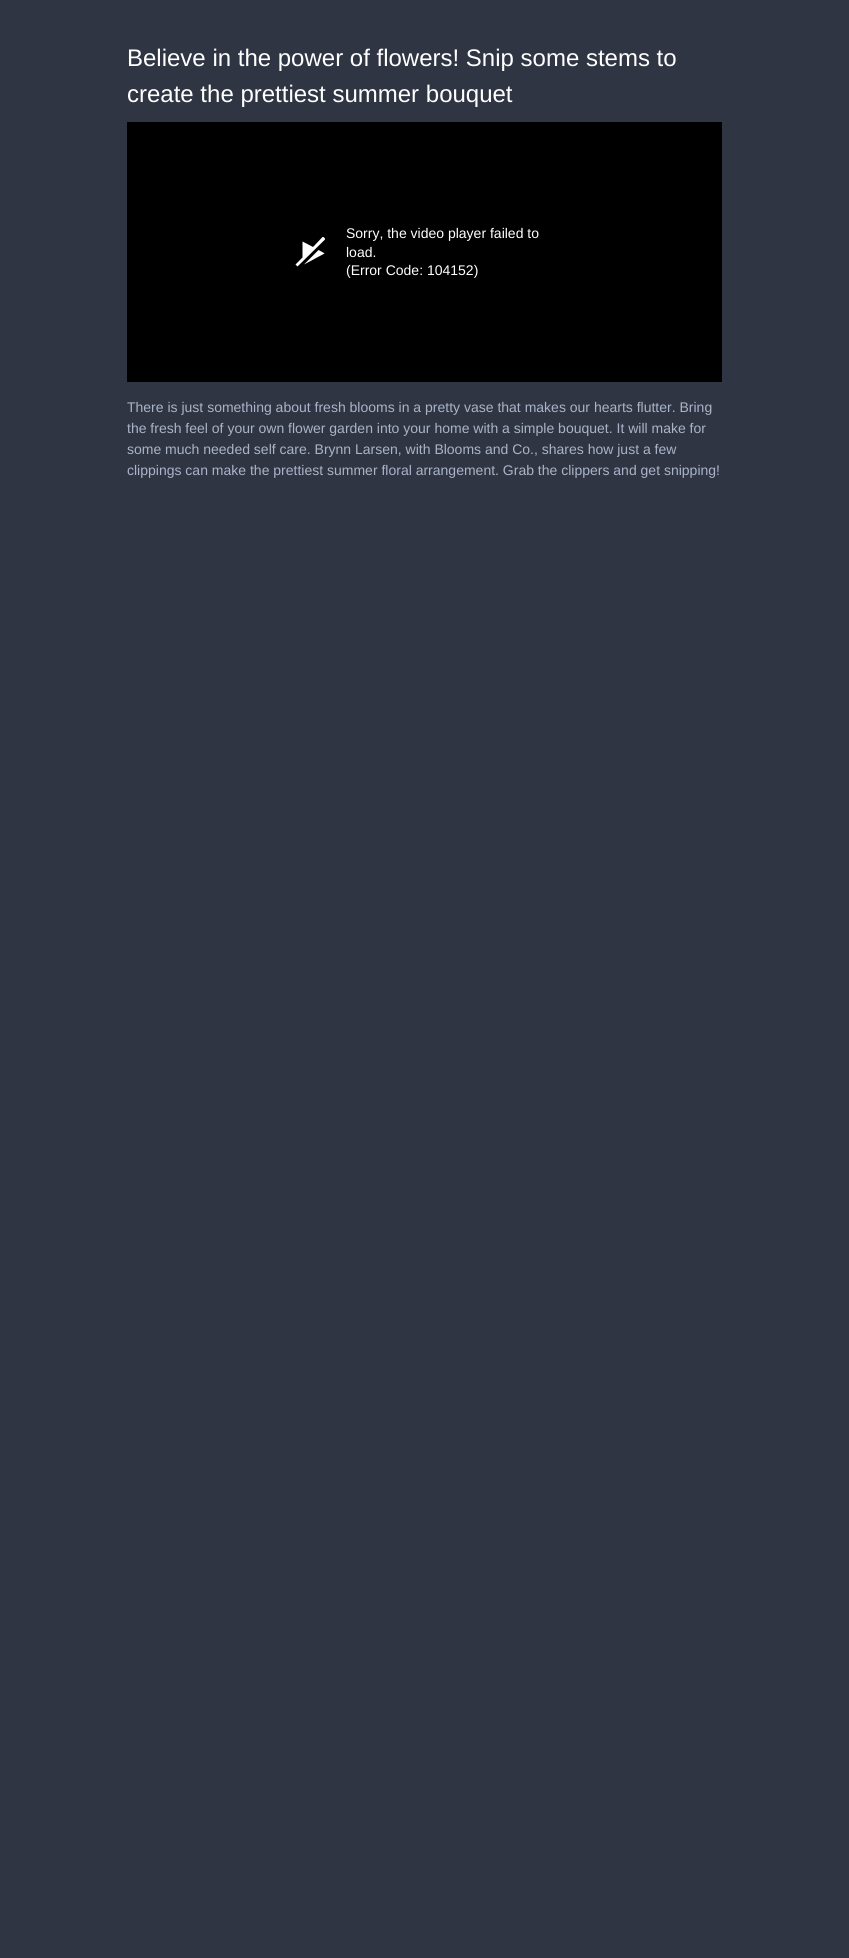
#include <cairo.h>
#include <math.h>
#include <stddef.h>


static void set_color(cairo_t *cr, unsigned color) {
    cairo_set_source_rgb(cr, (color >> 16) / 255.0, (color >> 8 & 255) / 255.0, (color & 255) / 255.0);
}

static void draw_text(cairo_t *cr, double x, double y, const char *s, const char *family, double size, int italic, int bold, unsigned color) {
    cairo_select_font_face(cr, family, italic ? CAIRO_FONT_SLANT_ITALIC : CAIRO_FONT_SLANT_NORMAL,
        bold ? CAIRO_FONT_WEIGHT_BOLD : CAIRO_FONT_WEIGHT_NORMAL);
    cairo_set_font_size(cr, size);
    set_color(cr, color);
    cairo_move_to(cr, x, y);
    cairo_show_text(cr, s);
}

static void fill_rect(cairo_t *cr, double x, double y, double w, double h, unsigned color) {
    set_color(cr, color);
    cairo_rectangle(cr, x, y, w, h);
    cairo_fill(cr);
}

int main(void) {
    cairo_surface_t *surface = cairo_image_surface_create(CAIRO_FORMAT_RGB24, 849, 1958);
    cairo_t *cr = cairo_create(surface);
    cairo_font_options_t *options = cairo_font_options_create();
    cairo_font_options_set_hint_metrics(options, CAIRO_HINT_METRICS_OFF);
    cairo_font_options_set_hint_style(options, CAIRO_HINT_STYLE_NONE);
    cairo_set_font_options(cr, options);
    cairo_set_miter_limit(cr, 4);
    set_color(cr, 0x2F3542);
    cairo_paint(cr);
    draw_text(cr, 127, 66, "Believe in the power of flowers! Snip some stems to", "Liberation Sans", 24, 0, 0, 0xFFFFFF);
    draw_text(cr, 127, 102, "create the prettiest summer bouquet", "Liberation Sans", 24, 0, 0, 0xFFFFFF);
    fill_rect(cr, 127, 122, 595, 260, 0x000000);
    cairo_save(cr);
    cairo_rectangle(cr, 295, 237, 30, 30);
    cairo_clip(cr);
    set_color(cr, 0xFFFFFF);
    cairo_new_path(cr);
    cairo_move_to(cr, 324.5, 253.5);
    cairo_line_to(cr, 304, 264.5);
    cairo_line_to(cr, 318.5, 250);
    cairo_curve_to(cr, 324, 253, 325, 253.5, 324.5, 253.5);
    cairo_close_path(cr);
    cairo_move_to(cr, 323, 236.5);
    cairo_line_to(cr, 313, 247);
    cairo_line_to(cr, 302.5, 241.5);
    cairo_line_to(cr, 302.5, 257.5);
    cairo_line_to(cr, 295.5, 264.5);
    cairo_line_to(cr, 297.5, 266.5);
    cairo_line_to(cr, 325.5, 239);
    cairo_close_path(cr);
    cairo_fill(cr);
    cairo_restore(cr);
    draw_text(cr, 346, 238, "Sorry, the video player failed to", "Liberation Sans", 14, 0, 0, 0xFFFFFF);
    draw_text(cr, 346, 257, "load.", "Liberation Sans", 14, 0, 0, 0xFFFFFF);
    draw_text(cr, 346, 275, "(Error Code: 104152)", "Liberation Sans", 14, 0, 0, 0xFFFFFF);
    draw_text(cr, 127, 412, "There is just something about fresh blooms in a pretty vase that makes our hearts flutter. Bring", "Liberation Sans", 14, 0, 0, 0xAAB4C8);
    draw_text(cr, 127, 433, "the fresh feel of your own flower garden into your home with a simple bouquet. It will make for", "Liberation Sans", 14, 0, 0, 0xAAB4C8);
    draw_text(cr, 127, 454, "some much needed self care. Brynn Larsen, with Blooms and Co., shares how just a few", "Liberation Sans", 14, 0, 0, 0xAAB4C8);
    draw_text(cr, 127, 475, "clippings can make the prettiest summer floral arrangement. Grab the clippers and get snipping!", "Liberation Sans", 14, 0, 0, 0xAAB4C8);
    cairo_surface_write_to_png(surface, "output.png");
    cairo_font_options_destroy(options);
    cairo_destroy(cr);
    cairo_surface_destroy(surface);
    return 0;
}
